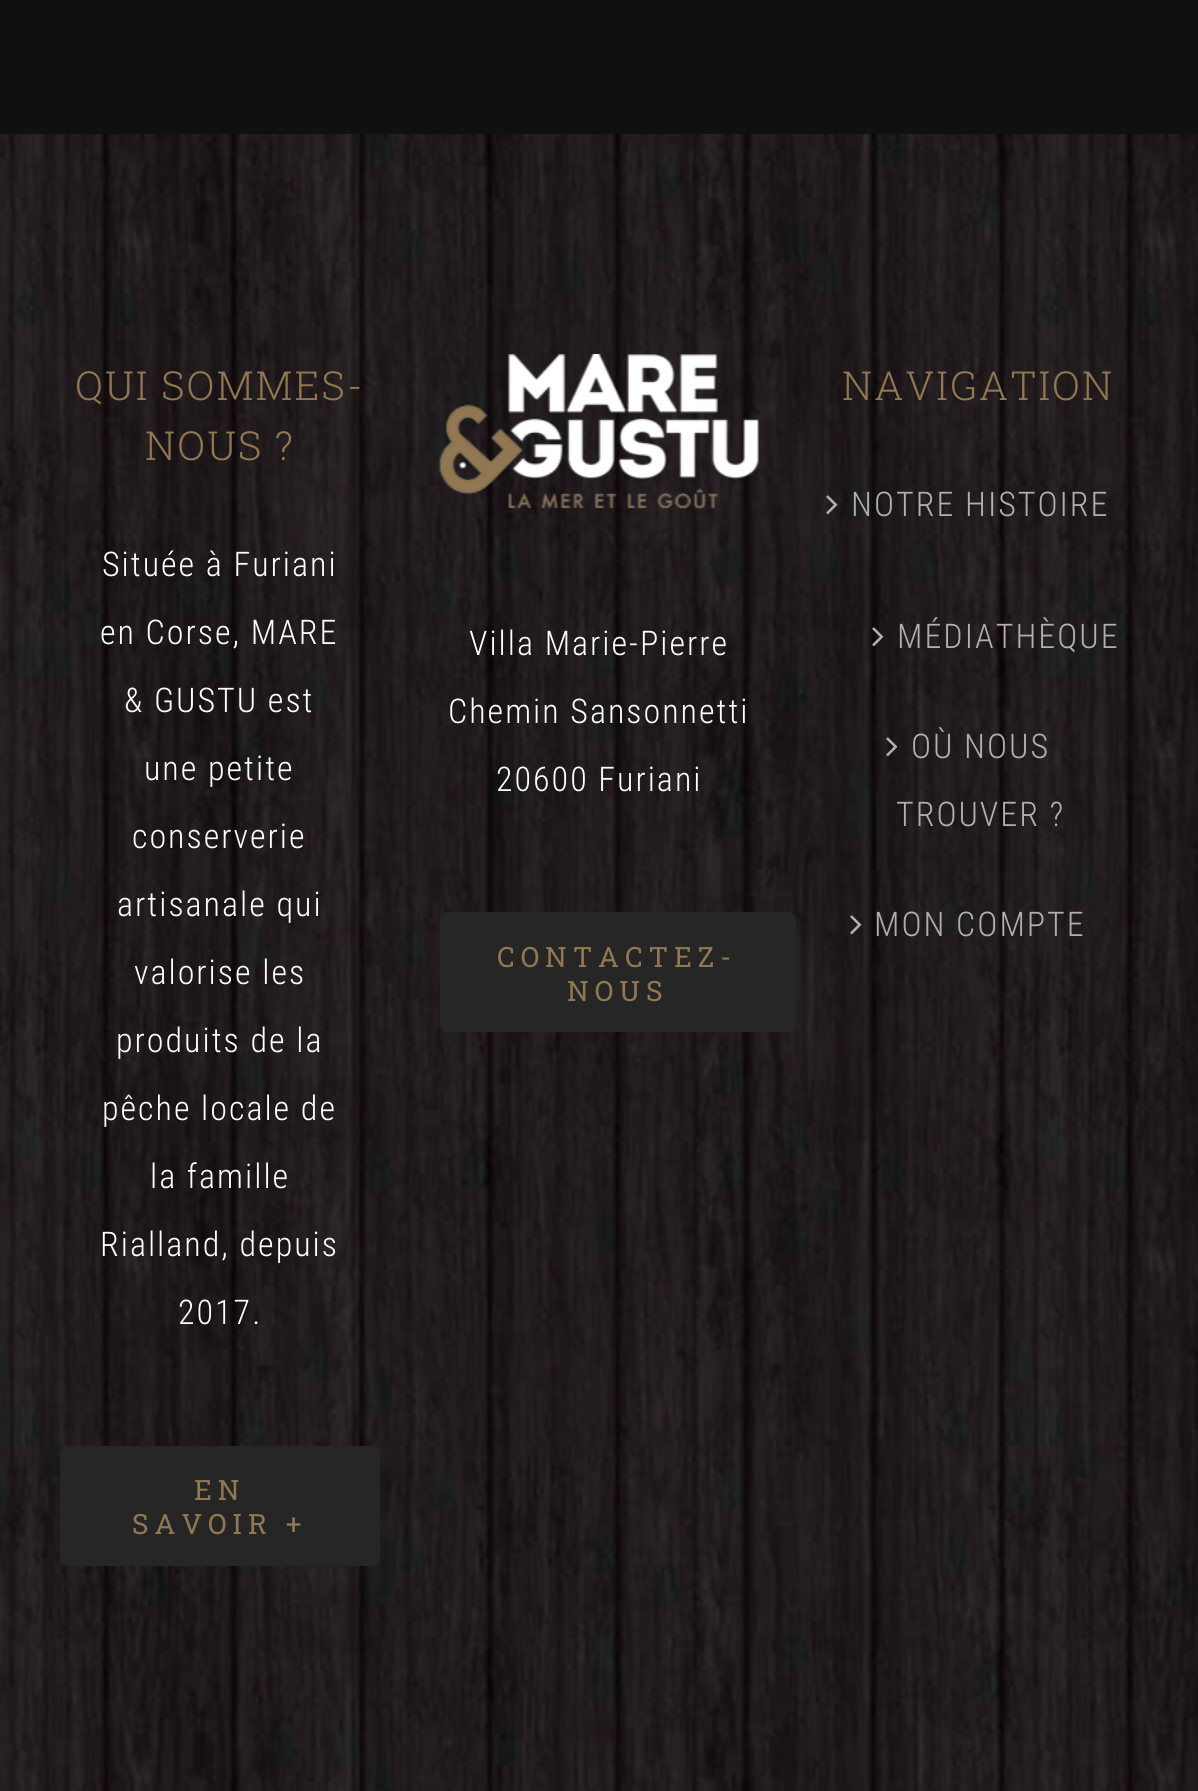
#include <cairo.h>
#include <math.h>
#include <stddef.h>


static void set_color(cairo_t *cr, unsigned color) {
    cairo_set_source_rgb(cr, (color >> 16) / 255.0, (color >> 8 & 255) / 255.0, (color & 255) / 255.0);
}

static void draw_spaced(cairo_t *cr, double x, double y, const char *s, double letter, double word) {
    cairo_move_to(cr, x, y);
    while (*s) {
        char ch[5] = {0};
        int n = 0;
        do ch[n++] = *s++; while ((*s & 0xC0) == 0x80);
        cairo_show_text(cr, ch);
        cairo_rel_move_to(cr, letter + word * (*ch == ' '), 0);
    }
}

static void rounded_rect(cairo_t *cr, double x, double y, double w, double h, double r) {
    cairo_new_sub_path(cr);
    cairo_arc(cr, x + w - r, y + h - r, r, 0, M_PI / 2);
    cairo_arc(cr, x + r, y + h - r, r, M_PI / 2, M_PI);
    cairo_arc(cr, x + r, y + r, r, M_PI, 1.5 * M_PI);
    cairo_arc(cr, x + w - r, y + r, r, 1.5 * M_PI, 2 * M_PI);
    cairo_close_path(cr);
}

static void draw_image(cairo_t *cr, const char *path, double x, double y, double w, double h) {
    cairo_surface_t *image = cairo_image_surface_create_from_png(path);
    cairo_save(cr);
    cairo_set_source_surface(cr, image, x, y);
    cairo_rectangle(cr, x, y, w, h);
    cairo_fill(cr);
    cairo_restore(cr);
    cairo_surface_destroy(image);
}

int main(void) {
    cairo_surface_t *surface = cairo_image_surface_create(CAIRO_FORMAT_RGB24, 1198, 1791);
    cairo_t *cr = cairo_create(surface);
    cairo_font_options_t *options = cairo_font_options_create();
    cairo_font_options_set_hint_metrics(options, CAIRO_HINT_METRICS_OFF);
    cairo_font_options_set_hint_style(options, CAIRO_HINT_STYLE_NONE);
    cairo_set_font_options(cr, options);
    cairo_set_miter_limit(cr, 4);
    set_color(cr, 0x101010);
    cairo_paint(cr);
    draw_image(cr, "assets/img1.png", 0, 134, 1198, 1657);
    cairo_select_font_face(cr, "Roboto Slab Light", CAIRO_FONT_SLANT_NORMAL, CAIRO_FONT_WEIGHT_NORMAL);
    cairo_set_font_size(cr, 40);
    set_color(cr, 0x917852);
    draw_spaced(cr, 75, 400, "QUI SOMMES-", 2, 0);
    draw_spaced(cr, 145, 460, "NOUS ?", 2, 0);
    cairo_select_font_face(cr, "Roboto Condensed Light", CAIRO_FONT_SLANT_NORMAL, CAIRO_FONT_WEIGHT_NORMAL);
    cairo_set_font_size(cr, 34);
    set_color(cr, 0xFFFFFF);
    draw_spaced(cr, 102, 576, "Située à Furiani", 2, 0);
    draw_spaced(cr, 100, 644, "en Corse, MARE", 2, 0);
    draw_spaced(cr, 124, 712, "& GUSTU est", 2, 0);
    draw_spaced(cr, 144, 780, "une petite", 2, 0);
    draw_spaced(cr, 132, 848, "conserverie", 2, 0);
    draw_spaced(cr, 117, 916, "artisanale qui", 2, 0);
    draw_spaced(cr, 134, 984, "valorise les", 2, 0);
    draw_spaced(cr, 116, 1052, "produits de la", 2, 0);
    draw_spaced(cr, 102, 1120, "pêche locale de", 2, 0);
    draw_spaced(cr, 150, 1188, "la famille", 2, 0);
    draw_spaced(cr, 100, 1256, "Rialland, depuis", 2, 0);
    draw_spaced(cr, 178, 1324, "2017.", 2, 0);
    set_color(cr, 0x262626);
    rounded_rect(cr, 60, 1446, 320, 120, 8);
    cairo_fill(cr);
    cairo_select_font_face(cr, "Roboto Slab", CAIRO_FONT_SLANT_NORMAL, CAIRO_FONT_WEIGHT_NORMAL);
    cairo_set_font_size(cr, 28);
    set_color(cr, 0x917852);
    draw_spaced(cr, 194, 1500, "EN", 6, 0);
    draw_spaced(cr, 132, 1534, "SAVOIR +", 6, 0);
    draw_image(cr, "assets/img2.png", 439, 354, 320, 155);
    cairo_select_font_face(cr, "Roboto Condensed Light", CAIRO_FONT_SLANT_NORMAL, CAIRO_FONT_WEIGHT_NORMAL);
    cairo_set_font_size(cr, 34);
    set_color(cr, 0xFFFFFF);
    draw_spaced(cr, 469, 655, "Villa Marie-Pierre", 2, 0);
    draw_spaced(cr, 448, 723, "Chemin Sansonnetti", 2, 0);
    draw_spaced(cr, 496, 791, "20600 Furiani", 2, 0);
    set_color(cr, 0x262626);
    rounded_rect(cr, 440, 912, 356, 120, 8);
    cairo_fill(cr);
    cairo_select_font_face(cr, "Roboto Slab", CAIRO_FONT_SLANT_NORMAL, CAIRO_FONT_WEIGHT_NORMAL);
    cairo_set_font_size(cr, 28);
    set_color(cr, 0x917852);
    draw_spaced(cr, 497, 967, "CONTACTEZ-", 6, 0);
    draw_spaced(cr, 567, 1001, "NOUS", 6, 0);
    cairo_select_font_face(cr, "Roboto Slab Light", CAIRO_FONT_SLANT_NORMAL, CAIRO_FONT_WEIGHT_NORMAL);
    cairo_set_font_size(cr, 40);
    draw_spaced(cr, 842, 400, "NAVIGATION", 2, 0);
    draw_image(cr, "assets/img3.png", 826, 495, 12, 20);
    cairo_select_font_face(cr, "Roboto Condensed Light", CAIRO_FONT_SLANT_NORMAL, CAIRO_FONT_WEIGHT_NORMAL);
    cairo_set_font_size(cr, 34);
    set_color(cr, 0xAFAFAF);
    draw_spaced(cr, 851, 516, "NOTRE HISTOIRE", 2, 0);
    draw_image(cr, "assets/img4.png", 872, 627, 12, 20);
    draw_spaced(cr, 897, 648, "MÉDIATHÈQUE", 2, 0);
    draw_image(cr, "assets/img5.png", 886, 737, 12, 20);
    draw_spaced(cr, 911, 758, "OÙ NOUS", 2, 0);
    draw_spaced(cr, 896, 826, "TROUVER ?", 2, 0);
    draw_image(cr, "assets/img6.png", 850, 915, 12, 20);
    draw_spaced(cr, 874, 936, "MON COMPTE", 2, 0);
    cairo_surface_write_to_png(surface, "output.png");
    cairo_font_options_destroy(options);
    cairo_destroy(cr);
    cairo_surface_destroy(surface);
    return 0;
}
